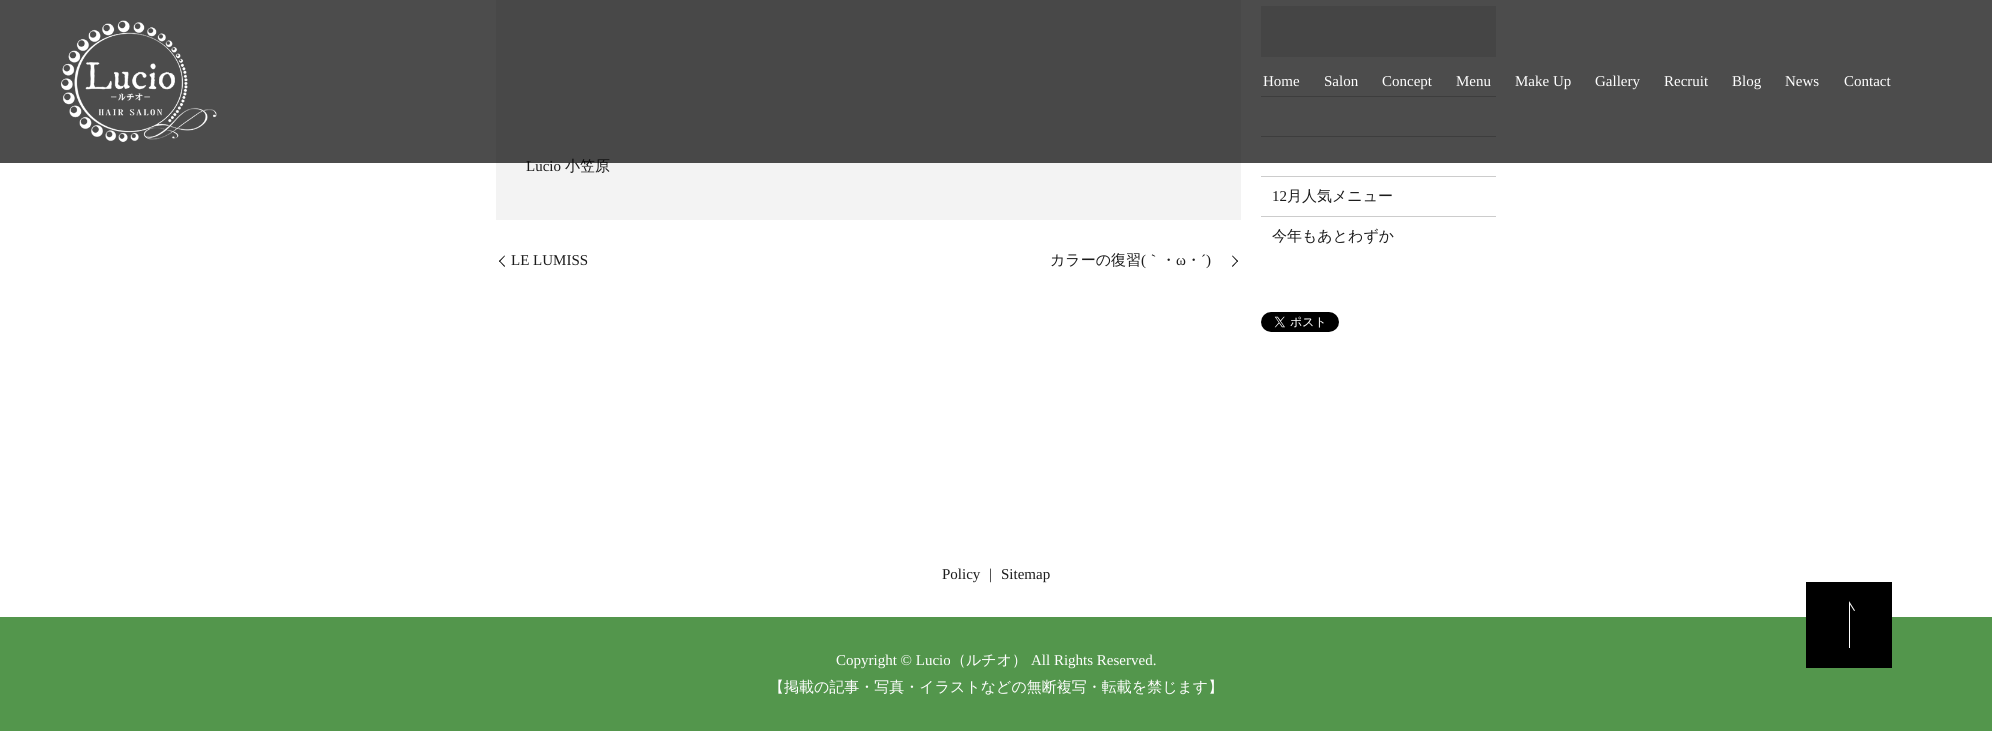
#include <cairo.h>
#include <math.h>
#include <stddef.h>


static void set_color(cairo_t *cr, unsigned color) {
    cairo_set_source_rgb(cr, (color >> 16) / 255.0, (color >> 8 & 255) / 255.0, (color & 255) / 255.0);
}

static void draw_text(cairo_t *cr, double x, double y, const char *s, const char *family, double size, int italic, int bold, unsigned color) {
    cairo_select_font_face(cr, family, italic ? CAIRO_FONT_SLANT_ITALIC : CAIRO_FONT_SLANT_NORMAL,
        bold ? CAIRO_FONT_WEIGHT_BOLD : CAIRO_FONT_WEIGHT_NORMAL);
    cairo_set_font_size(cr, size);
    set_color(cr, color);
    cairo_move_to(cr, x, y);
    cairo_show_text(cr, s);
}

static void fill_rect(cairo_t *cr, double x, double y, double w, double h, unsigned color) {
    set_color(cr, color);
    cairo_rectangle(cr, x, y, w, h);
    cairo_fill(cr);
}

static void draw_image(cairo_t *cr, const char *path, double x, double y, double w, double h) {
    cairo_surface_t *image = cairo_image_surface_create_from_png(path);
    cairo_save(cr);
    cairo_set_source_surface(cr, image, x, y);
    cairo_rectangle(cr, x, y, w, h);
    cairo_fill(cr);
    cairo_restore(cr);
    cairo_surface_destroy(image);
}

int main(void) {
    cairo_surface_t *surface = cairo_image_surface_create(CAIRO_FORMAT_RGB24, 1992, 731);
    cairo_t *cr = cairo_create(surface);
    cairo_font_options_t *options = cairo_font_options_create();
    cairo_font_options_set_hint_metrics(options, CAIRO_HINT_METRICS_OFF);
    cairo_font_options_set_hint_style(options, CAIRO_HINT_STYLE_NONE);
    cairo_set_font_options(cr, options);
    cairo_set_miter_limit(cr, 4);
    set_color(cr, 0xFFFFFF);
    cairo_paint(cr);
    fill_rect(cr, 496, 0, 745, 220, 0xF3F3F3);
    draw_text(cr, 526, 171, "Lucio", "Liberation Serif", 15, 0, 0, 0x1B1B1B);
    draw_text(cr, 565, 171, "小笠原", "WenQuanYi Zen Hei Medium", 15, 0, 0, 0x1B1B1B);
    fill_rect(cr, 1261, 6, 235, 51, 0xE6E6E6);
    fill_rect(cr, 1261, 96, 235, 1, 0xCCCCCC);
    fill_rect(cr, 1261, 136, 235, 1, 0xCCCCCC);
    cairo_set_source_rgba(cr, 0, 0, 0, 0.7);
    cairo_rectangle(cr, 0, 0, 1992, 163);
    cairo_fill(cr);
    draw_image(cr, "assets/img1.png", 61, 20, 156, 122);
    draw_text(cr, 1263, 86, "Home", "Liberation Serif", 15, 0, 0, 0xFFFFFF);
    draw_text(cr, 1324, 86, "Salon", "Liberation Serif", 15, 0, 0, 0xFFFFFF);
    draw_text(cr, 1382, 86, "Concept", "Liberation Serif", 15, 0, 0, 0xFFFFFF);
    draw_text(cr, 1456, 86, "Menu", "Liberation Serif", 15, 0, 0, 0xFFFFFF);
    draw_text(cr, 1515, 86, "Make Up", "Liberation Serif", 15, 0, 0, 0xFFFFFF);
    draw_text(cr, 1595, 86, "Gallery", "Liberation Serif", 15, 0, 0, 0xFFFFFF);
    draw_text(cr, 1664, 86, "Recruit", "Liberation Serif", 15, 0, 0, 0xFFFFFF);
    draw_text(cr, 1732, 86, "Blog", "Liberation Serif", 15, 0, 0, 0xFFFFFF);
    draw_text(cr, 1785, 86, "News", "Liberation Serif", 15, 0, 0, 0xFFFFFF);
    draw_text(cr, 1844, 86, "Contact", "Liberation Serif", 15, 0, 0, 0xFFFFFF);
    set_color(cr, 0x000000);
    cairo_new_path(cr);
    cairo_move_to(cr, 499, 261);
    cairo_line_to(cr, 504.5, 255.5);
    cairo_line_to(cr, 505, 256);
    cairo_line_to(cr, 499.5, 262);
    cairo_close_path(cr);
    cairo_fill(cr);
    draw_text(cr, 511, 265, "LE LUMISS", "Liberation Serif", 15, 0, 0, 0x1B1B1B);
    set_color(cr, 0x000000);
    cairo_new_path(cr);
    cairo_move_to(cr, 504.5, 267);
    cairo_line_to(cr, 499, 261);
    cairo_line_to(cr, 499.5, 260.5);
    cairo_line_to(cr, 505, 266);
    cairo_close_path(cr);
    cairo_fill(cr);
    draw_text(cr, 1050, 265, "カラーの復習", "WenQuanYi Zen Hei Medium", 15, 0, 0, 0x1B1B1B);
    draw_text(cr, 1141, 265, "(", "Liberation Serif", 15, 0, 0, 0x1B1B1B);
    draw_text(cr, 1146, 265, "｀・", "WenQuanYi Zen Hei Medium", 15, 0, 0, 0x1B1B1B);
    draw_text(cr, 1176, 265, "ω", "Liberation Serif", 15, 0, 0, 0x1B1B1B);
    draw_text(cr, 1186, 265, "・", "WenQuanYi Zen Hei Medium", 15, 0, 0, 0x1B1B1B);
    draw_text(cr, 1201, 265, "´)", "Liberation Serif", 15, 0, 0, 0x1B1B1B);
    set_color(cr, 0x000000);
    cairo_new_path(cr);
    cairo_move_to(cr, 1232.5, 255.5);
    cairo_line_to(cr, 1238, 261);
    cairo_line_to(cr, 1237.5, 262);
    cairo_line_to(cr, 1232, 256);
    cairo_close_path(cr);
    cairo_fill(cr);
    cairo_new_path(cr);
    cairo_move_to(cr, 1238, 261);
    cairo_line_to(cr, 1232.5, 267);
    cairo_line_to(cr, 1232, 266);
    cairo_line_to(cr, 1237.5, 260.5);
    cairo_close_path(cr);
    cairo_fill(cr);
    fill_rect(cr, 1261, 176, 235, 1, 0xCCCCCC);
    fill_rect(cr, 1261, 216, 235, 1, 0xCCCCCC);
    draw_text(cr, 1272, 201, "12", "Liberation Serif", 15, 0, 0, 0x1B1B1B);
    draw_text(cr, 1287, 201, "月人気メニュー", "WenQuanYi Zen Hei Medium", 15, 0, 0, 0x1B1B1B);
    draw_text(cr, 1272, 241, "今年もあとわずか", "WenQuanYi Zen Hei Medium", 15, 0, 0, 0x1B1B1B);
    draw_image(cr, "assets/img2.png", 1261, 312, 78, 20);
    draw_text(cr, 942, 579, "Policy", "Liberation Serif", 15, 0, 0, 0x1B1B1B);
    draw_text(cr, 989, 579, "|", "Liberation Serif", 15, 0, 0, 0x1B1B1B);
    draw_text(cr, 1001, 579, "Sitemap", "Liberation Serif", 15, 0, 0, 0x1B1B1B);
    fill_rect(cr, 0, 617, 1992, 114, 0x53964C);
    draw_image(cr, "assets/img3.png", 1806, 582, 86, 86);
    draw_text(cr, 836, 665, "Copyright © Lucio", "Liberation Serif", 15, 0, 0, 0xFFFFFF);
    draw_text(cr, 951, 665, "（ルチオ）", "WenQuanYi Zen Hei Medium", 15, 0, 0, 0xFFFFFF);
    draw_text(cr, 1031, 665, "All Rights Reserved.", "Liberation Serif", 15, 0, 0, 0xFFFFFF);
    draw_text(cr, 769, 692, "【掲載の記事・写真・イラストなどの無断複写・転載を禁じます】", "WenQuanYi Zen Hei Medium", 15, 0, 0, 0xFFFFFF);
    cairo_surface_write_to_png(surface, "output.png");
    cairo_font_options_destroy(options);
    cairo_destroy(cr);
    cairo_surface_destroy(surface);
    return 0;
}
